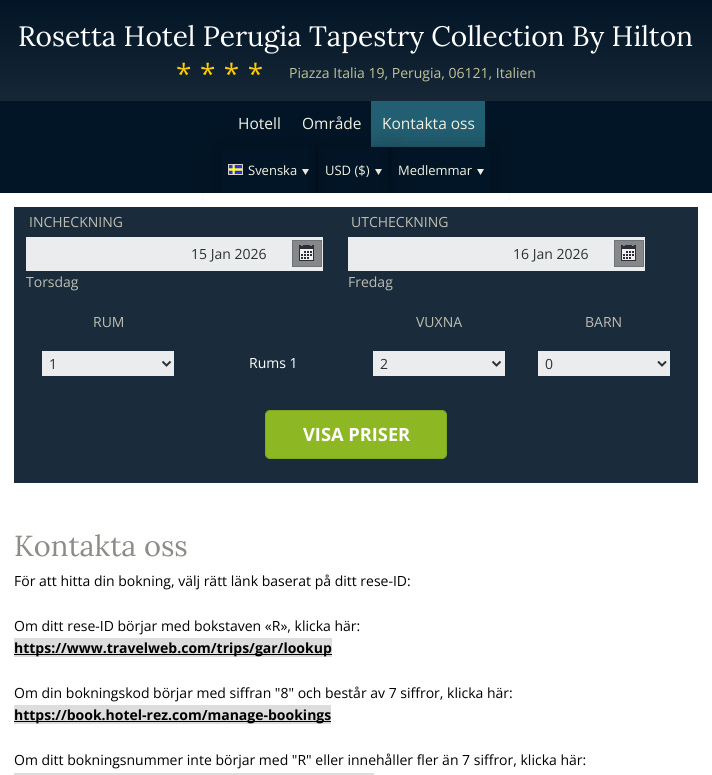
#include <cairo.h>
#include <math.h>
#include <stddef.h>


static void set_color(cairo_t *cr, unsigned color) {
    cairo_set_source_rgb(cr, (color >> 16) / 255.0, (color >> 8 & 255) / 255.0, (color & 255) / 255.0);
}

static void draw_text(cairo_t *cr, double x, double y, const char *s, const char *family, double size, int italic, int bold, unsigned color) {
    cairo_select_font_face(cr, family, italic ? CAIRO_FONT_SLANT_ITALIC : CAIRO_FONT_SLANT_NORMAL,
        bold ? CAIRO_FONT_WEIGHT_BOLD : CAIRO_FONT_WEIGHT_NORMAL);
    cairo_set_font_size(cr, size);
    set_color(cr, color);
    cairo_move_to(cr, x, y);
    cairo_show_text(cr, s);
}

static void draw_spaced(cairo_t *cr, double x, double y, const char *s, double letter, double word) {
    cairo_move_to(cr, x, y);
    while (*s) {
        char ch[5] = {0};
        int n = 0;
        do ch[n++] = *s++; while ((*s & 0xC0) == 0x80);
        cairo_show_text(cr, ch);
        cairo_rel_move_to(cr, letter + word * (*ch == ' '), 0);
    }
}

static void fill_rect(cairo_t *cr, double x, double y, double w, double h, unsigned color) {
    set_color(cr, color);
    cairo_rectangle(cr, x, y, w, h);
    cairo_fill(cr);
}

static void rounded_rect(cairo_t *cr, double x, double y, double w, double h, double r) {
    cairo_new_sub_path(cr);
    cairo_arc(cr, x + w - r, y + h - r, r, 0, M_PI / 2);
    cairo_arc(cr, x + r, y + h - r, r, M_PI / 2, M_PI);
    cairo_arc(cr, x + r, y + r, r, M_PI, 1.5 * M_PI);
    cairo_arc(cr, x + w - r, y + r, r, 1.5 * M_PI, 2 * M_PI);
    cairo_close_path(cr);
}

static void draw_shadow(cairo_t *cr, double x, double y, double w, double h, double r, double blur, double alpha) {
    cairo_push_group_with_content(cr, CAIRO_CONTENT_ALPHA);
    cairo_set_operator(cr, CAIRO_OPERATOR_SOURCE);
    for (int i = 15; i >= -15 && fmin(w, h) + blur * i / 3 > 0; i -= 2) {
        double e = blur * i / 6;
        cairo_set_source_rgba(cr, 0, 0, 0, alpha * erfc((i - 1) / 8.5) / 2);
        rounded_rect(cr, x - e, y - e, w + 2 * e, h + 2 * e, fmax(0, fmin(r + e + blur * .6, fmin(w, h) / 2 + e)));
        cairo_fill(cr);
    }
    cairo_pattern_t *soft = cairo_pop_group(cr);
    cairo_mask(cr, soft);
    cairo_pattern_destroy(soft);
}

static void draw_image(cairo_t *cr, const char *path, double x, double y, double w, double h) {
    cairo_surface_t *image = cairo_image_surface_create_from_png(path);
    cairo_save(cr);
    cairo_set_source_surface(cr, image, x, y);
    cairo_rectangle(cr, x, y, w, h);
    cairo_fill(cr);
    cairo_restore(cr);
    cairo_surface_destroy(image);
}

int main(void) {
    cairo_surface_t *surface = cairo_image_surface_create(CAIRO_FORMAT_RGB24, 712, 775);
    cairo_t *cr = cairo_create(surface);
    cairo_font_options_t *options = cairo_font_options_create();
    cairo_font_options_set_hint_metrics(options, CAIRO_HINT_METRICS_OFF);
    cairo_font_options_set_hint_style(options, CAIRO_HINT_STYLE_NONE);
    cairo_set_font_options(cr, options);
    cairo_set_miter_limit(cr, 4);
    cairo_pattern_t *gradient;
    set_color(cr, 0xFFFFFF);
    cairo_paint(cr);
    gradient = cairo_pattern_create_linear(356, 0, 356, 101);
    cairo_pattern_add_color_stop_rgba(gradient, 0, 0.008, 0.082, 0.149, 1);
    cairo_pattern_add_color_stop_rgba(gradient, 1, 0.086, 0.153, 0.212, 1);
    cairo_set_source(cr, gradient);
    cairo_pattern_destroy(gradient);
    cairo_rectangle(cr, 0, 0, 712, 101);
    cairo_fill(cr);
    draw_text(cr, 18, 46, "Rosetta Hotel Perugia Tapestry Collection By Hilton", "Lora", 28, 0, 0, 0xFFFFFF);
    cairo_select_font_face(cr, "Open Sans", CAIRO_FONT_SLANT_NORMAL, CAIRO_FONT_WEIGHT_NORMAL);
    set_color(cr, 0xF9CA09);
    draw_spaced(cr, 176, 84, "****", 8.5, 0);
    draw_text(cr, 289, 78, "Piazza Italia 19, Perugia, 06121, Italien", "Open Sans", 14, 0, 0, 0xBFC295);
    fill_rect(cr, 0, 101, 712, 92, 0x021526);
    draw_text(cr, 238, 129, "Hotell", "Open Sans", 15.5, 0, 0, 0xF2F2E3);
    draw_text(cr, 302, 129, "Område", "Open Sans", 15.5, 0, 0, 0xF2F2E3);
    fill_rect(cr, 371, 101, 114, 46, 0x225F72);
    draw_text(cr, 382, 129, "Kontakta oss", "Open Sans", 15.5, 0, 0, 0xF2F2E3);
    cairo_save(cr);
    cairo_set_fill_rule(cr, CAIRO_FILL_RULE_EVEN_ODD);
    cairo_new_path(cr);
    cairo_move_to(cr, 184, 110);
    cairo_line_to(cr, 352, 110);
    cairo_line_to(cr, 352, 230);
    cairo_line_to(cr, 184, 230);
    cairo_close_path(cr);
    cairo_move_to(cr, 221, 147);
    cairo_line_to(cr, 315, 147);
    cairo_line_to(cr, 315, 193);
    cairo_line_to(cr, 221, 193);
    cairo_close_path(cr);
    cairo_clip(cr);
    set_color(cr, 0x000000);
    draw_shadow(cr, 221, 147, 94, 46, 0, 12, 0.27);
    cairo_restore(cr);
    draw_image(cr, "assets/img1.png", 228, 164, 15, 11);
    draw_text(cr, 248, 175, "Svenska", "Open Sans", 13, 0, 0, 0xF2F2E3);
    draw_image(cr, "assets/img2.png", 302, 169, 7, 6);
    cairo_save(cr);
    cairo_set_fill_rule(cr, CAIRO_FILL_RULE_EVEN_ODD);
    cairo_new_path(cr);
    cairo_move_to(cr, 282, 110);
    cairo_line_to(cr, 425, 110);
    cairo_line_to(cr, 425, 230);
    cairo_line_to(cr, 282, 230);
    cairo_close_path(cr);
    cairo_move_to(cr, 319, 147);
    cairo_line_to(cr, 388, 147);
    cairo_line_to(cr, 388, 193);
    cairo_line_to(cr, 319, 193);
    cairo_close_path(cr);
    cairo_clip(cr);
    set_color(cr, 0x000000);
    draw_shadow(cr, 319, 147, 69, 46, 0, 12, 0.27);
    cairo_restore(cr);
    cairo_set_source_rgba(cr, 0.008, 0.082, 0.149, 0.9);
    cairo_rectangle(cr, 319, 157, 2, 26);
    cairo_fill(cr);
    draw_text(cr, 325, 175, "USD ($)", "Open Sans", 13, 0, 0, 0xF2F2E3);
    draw_image(cr, "assets/img2.png", 375, 169, 7, 6);
    cairo_save(cr);
    cairo_set_fill_rule(cr, CAIRO_FILL_RULE_EVEN_ODD);
    cairo_new_path(cr);
    cairo_move_to(cr, 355, 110);
    cairo_line_to(cr, 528, 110);
    cairo_line_to(cr, 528, 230);
    cairo_line_to(cr, 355, 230);
    cairo_close_path(cr);
    cairo_move_to(cr, 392, 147);
    cairo_line_to(cr, 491, 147);
    cairo_line_to(cr, 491, 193);
    cairo_line_to(cr, 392, 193);
    cairo_close_path(cr);
    cairo_clip(cr);
    set_color(cr, 0x000000);
    draw_shadow(cr, 392, 147, 99, 46, 0, 12, 0.27);
    cairo_restore(cr);
    cairo_set_source_rgba(cr, 0.008, 0.082, 0.149, 0.9);
    cairo_rectangle(cr, 392, 157, 2, 26);
    cairo_fill(cr);
    draw_text(cr, 398, 175, "Medlemmar", "Open Sans", 13, 0, 0, 0xF2F2E3);
    draw_image(cr, "assets/img2.png", 477, 169, 7, 6);
    fill_rect(cr, 204, 193, 304, 21, 0xFFFFFF);
    fill_rect(cr, 14, 207, 684, 276, 0x1A2C3B);
    draw_text(cr, 29, 227, "INCHECKNING", "Open Sans", 14, 0, 0, 0xBEBCB2);
    fill_rect(cr, 26, 237, 297, 34, 0xEBECED);
    fill_rect(cr, 293, 241, 28, 25, 0x868788);
    draw_image(cr, "assets/img3.png", 299, 245, 15, 16);
    cairo_rectangle(cr, 292.5, 240.5, 29, 26);
    set_color(cr, 0x6E747A);
    cairo_set_line_width(cr, 1);
    cairo_stroke(cr);
    draw_text(cr, 191, 259, "15 Jan 2026", "Open Sans", 14, 0, 0, 0x2A3235);
    draw_text(cr, 26, 287, "Torsdag", "Open Sans", 14, 0, 0, 0xBEBCB2);
    draw_text(cr, 351, 227, "UTCHECKNING", "Open Sans", 14, 0, 0, 0xBEBCB2);
    fill_rect(cr, 348, 237, 297, 34, 0xEBECED);
    fill_rect(cr, 615, 241, 28, 25, 0x868788);
    draw_image(cr, "assets/img3.png", 621, 245, 15, 16);
    cairo_rectangle(cr, 614.5, 240.5, 29, 26);
    set_color(cr, 0x6E747A);
    cairo_stroke(cr);
    draw_text(cr, 513, 259, "16 Jan 2026", "Open Sans", 14, 0, 0, 0x2A3235);
    draw_text(cr, 348, 287, "Fredag", "Open Sans", 14, 0, 0, 0xBEBCB2);
    draw_text(cr, 93, 327, "RUM", "Open Sans", 14, 0, 0, 0xBEBCB2);
    draw_text(cr, 416, 327, "VUXNA", "Open Sans", 14, 0, 0, 0xBEBCB2);
    draw_text(cr, 585, 327, "BARN", "Open Sans", 14, 0, 0, 0xBEBCB2);
    fill_rect(cr, 42, 351, 132, 25, 0xEBECED);
    cairo_new_path(cr);
    cairo_move_to(cr, 162.5, 361.5);
    cairo_line_to(cr, 166.5, 365.5);
    cairo_line_to(cr, 170.5, 361.5);
    set_color(cr, 0x2A3235);
    cairo_set_line_width(cr, 2);
    cairo_stroke(cr);
    draw_text(cr, 49, 369, "1", "Open Sans", 14, 0, 0, 0x2A3235);
    draw_text(cr, 249, 368, "Rums 1", "Open Sans", 14, 0, 0, 0xFFFFFF);
    fill_rect(cr, 373, 351, 132, 25, 0xEBECED);
    cairo_new_path(cr);
    cairo_move_to(cr, 492.5, 361.5);
    cairo_line_to(cr, 496.5, 365.5);
    cairo_line_to(cr, 500.5, 361.5);
    set_color(cr, 0x2A3235);
    cairo_stroke(cr);
    draw_text(cr, 380, 369, "2", "Open Sans", 14, 0, 0, 0x2A3235);
    fill_rect(cr, 538, 351, 132, 25, 0xEBECED);
    cairo_new_path(cr);
    cairo_move_to(cr, 658, 361.5);
    cairo_line_to(cr, 662, 365.5);
    cairo_line_to(cr, 666, 361.5);
    set_color(cr, 0x2A3235);
    cairo_stroke(cr);
    draw_text(cr, 545, 369, "0", "Open Sans", 14, 0, 0, 0x2A3235);
    set_color(cr, 0x8EB724);
    rounded_rect(cr, 265.5, 410.5, 181, 48, 4.5);
    cairo_fill_preserve(cr);
    set_color(cr, 0x80A51E);
    cairo_set_line_width(cr, 1);
    cairo_stroke(cr);
    draw_text(cr, 303, 441, "VISA PRISER", "Open Sans", 18.25, 0, 1, 0xFFFFFF);
    draw_text(cr, 14, 556, "Kontakta oss", "Lora", 29, 0, 0, 0x8E8C86);
    draw_text(cr, 14, 586, "För att hitta din bokning, välj rätt länk baserat på ditt rese-ID:", "Open Sans", 14, 0, 0, 0x000000);
    draw_text(cr, 14, 631, "Om ditt rese-ID börjar med bokstaven «R», klicka här:", "Open Sans", 14, 0, 0, 0x000000);
    fill_rect(cr, 14, 638, 318, 19, 0xDDDDDD);
    fill_rect(cr, 14, 654, 318, 1, 0x000000);
    draw_text(cr, 14, 653, "https://www.travelweb.com/trips/gar/lookup", "Open Sans", 14, 0, 1, 0x000000);
    draw_text(cr, 14, 698, "Om din bokningskod börjar med siffran \"8\" och består av 7 siffror, klicka här:", "Open Sans", 14, 0, 0, 0x000000);
    fill_rect(cr, 14, 705, 317, 19, 0xDDDDDD);
    fill_rect(cr, 14, 721, 317, 1, 0x000000);
    draw_text(cr, 14, 720, "https://book.hotel-rez.com/manage-bookings", "Open Sans", 14, 0, 1, 0x000000);
    draw_text(cr, 14, 765, "Om ditt bokningsnummer inte börjar med \"R\" eller innehåller fler än 7 siffror, klicka här:", "Open Sans", 14, 0, 0, 0x000000);
    fill_rect(cr, 14, 773, 360, 2, 0xDDDDDD);
    cairo_surface_write_to_png(surface, "output.png");
    cairo_font_options_destroy(options);
    cairo_destroy(cr);
    cairo_surface_destroy(surface);
    return 0;
}
